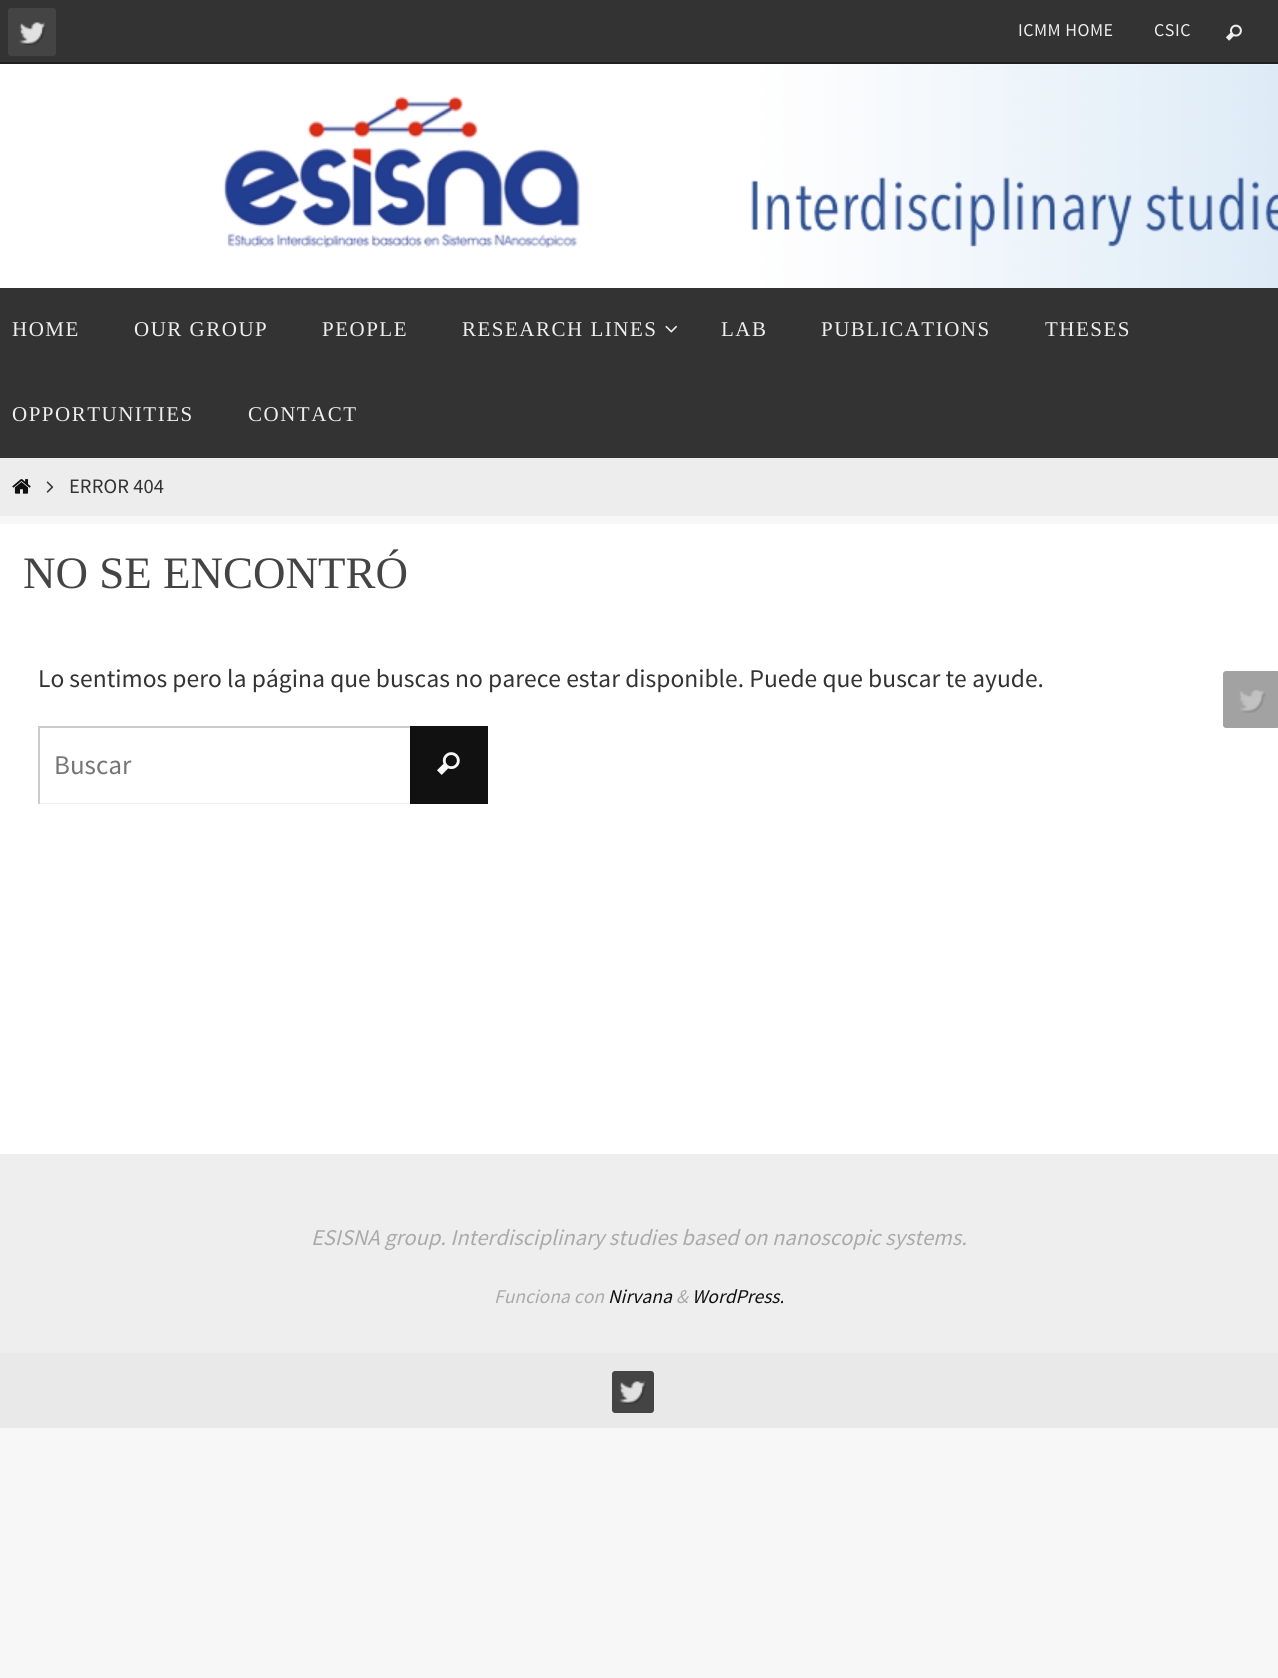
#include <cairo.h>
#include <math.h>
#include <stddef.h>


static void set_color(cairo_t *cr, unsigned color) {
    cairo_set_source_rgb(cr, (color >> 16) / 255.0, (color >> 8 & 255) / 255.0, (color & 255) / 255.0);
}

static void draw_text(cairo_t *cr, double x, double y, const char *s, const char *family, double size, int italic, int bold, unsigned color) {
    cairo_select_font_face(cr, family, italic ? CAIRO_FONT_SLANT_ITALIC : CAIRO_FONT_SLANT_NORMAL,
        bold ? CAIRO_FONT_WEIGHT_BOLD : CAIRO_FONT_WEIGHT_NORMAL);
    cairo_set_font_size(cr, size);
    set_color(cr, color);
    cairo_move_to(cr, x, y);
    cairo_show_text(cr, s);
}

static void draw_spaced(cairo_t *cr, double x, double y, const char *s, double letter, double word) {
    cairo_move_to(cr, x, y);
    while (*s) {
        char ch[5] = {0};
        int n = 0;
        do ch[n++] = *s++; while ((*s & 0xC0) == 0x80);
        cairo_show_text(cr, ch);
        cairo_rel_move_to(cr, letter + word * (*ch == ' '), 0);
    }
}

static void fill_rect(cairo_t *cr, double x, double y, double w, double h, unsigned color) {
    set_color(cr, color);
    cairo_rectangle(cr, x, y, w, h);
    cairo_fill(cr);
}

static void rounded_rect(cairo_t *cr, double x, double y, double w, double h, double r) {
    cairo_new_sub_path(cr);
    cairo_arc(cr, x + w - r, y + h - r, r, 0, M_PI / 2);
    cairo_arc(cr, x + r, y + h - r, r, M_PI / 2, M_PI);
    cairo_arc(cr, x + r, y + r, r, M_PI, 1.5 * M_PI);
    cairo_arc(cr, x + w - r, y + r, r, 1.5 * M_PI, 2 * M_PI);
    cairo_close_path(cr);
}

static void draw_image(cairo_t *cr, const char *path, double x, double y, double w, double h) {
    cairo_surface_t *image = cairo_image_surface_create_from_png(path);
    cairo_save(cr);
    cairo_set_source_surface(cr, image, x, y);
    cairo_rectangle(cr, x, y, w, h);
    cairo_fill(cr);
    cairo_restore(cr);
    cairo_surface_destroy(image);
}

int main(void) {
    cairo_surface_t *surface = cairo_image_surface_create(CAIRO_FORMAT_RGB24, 1278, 1678);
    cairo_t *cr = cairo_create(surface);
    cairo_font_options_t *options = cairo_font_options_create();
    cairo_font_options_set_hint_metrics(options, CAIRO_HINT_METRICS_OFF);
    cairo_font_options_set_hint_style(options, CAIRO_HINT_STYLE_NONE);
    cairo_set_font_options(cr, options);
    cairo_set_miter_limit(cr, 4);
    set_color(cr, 0xF7F7F7);
    cairo_paint(cr);
    fill_rect(cr, 0, 0, 1278, 62, 0x333333);
    fill_rect(cr, 0, 62, 1278, 2, 0x1F1F1F);
    set_color(cr, 0x444444);
    rounded_rect(cr, 8, 8, 48, 48, 3);
    cairo_fill(cr);
    draw_image(cr, "assets/img1.png", 19, 22, 27, 23);
    cairo_select_font_face(cr, "Source Sans Pro", CAIRO_FONT_SLANT_NORMAL, CAIRO_FONT_WEIGHT_NORMAL);
    cairo_set_font_size(cr, 18);
    set_color(cr, 0xEEEEEE);
    draw_spaced(cr, 1018, 36, "ICMM HOME", 0.5, 0);
    draw_spaced(cr, 1154, 36, "CSIC", 0.5, 0);
    draw_image(cr, "assets/img2.png", 1225, 24, 17, 17);
    draw_image(cr, "assets/img3.png", 0, 64, 1278, 224);
    fill_rect(cr, 0, 288, 1278, 170, 0x333333);
    cairo_select_font_face(cr, "Liberation Serif", CAIRO_FONT_SLANT_NORMAL, CAIRO_FONT_WEIGHT_NORMAL);
    cairo_set_font_size(cr, 21);
    set_color(cr, 0xEEEEEE);
    draw_spaced(cr, 12, 336, "HOME", 1.5, 0);
    draw_spaced(cr, 134, 336, "OUR GROUP", 1.5, 0);
    draw_spaced(cr, 322, 336, "PEOPLE", 1.5, 0);
    draw_spaced(cr, 462, 336, "RESEARCH LINES", 1.5, 0);
    draw_image(cr, "assets/img4.png", 665, 325, 13, 8);
    draw_spaced(cr, 721, 336, "LAB", 1.5, 0);
    draw_spaced(cr, 821, 336, "PUBLICATIONS", 1.5, 0);
    draw_spaced(cr, 1045, 336, "THESES", 1.5, 0);
    draw_spaced(cr, 12, 421, "OPPORTUNITIES", 1.5, 0);
    draw_spaced(cr, 248, 421, "CONTACT", 1.5, 0);
    fill_rect(cr, 0, 458, 1278, 58, 0xEDEDED);
    draw_image(cr, "assets/img5.png", 12, 479, 19, 15);
    draw_image(cr, "assets/img6.png", 46, 481, 8, 12);
    draw_text(cr, 69, 493, "ERROR 404", "Source Sans Pro", 20.5, 0, 0, 0x333333);
    fill_rect(cr, 0, 524, 1278, 630, 0xFFFFFF);
    draw_text(cr, 23, 588, "NO SE ENCONTRÓ", "Liberation Serif", 45, 0, 0, 0x444444);
    draw_text(cr, 38, 687, "Lo sentimos pero la página que buscas no parece estar disponible. Puede que buscar te ayude.", "Source Sans Pro", 25.5, 0, 0, 0x333333);
    fill_rect(cr, 410, 726, 78, 78, 0x111111);
    fill_rect(cr, 38, 726, 372, 2, 0xCCCCCC);
    fill_rect(cr, 38, 803, 372, 1, 0xEEEEEE);
    fill_rect(cr, 38, 726, 2, 78, 0xCCCCCC);
    draw_text(cr, 54, 774, "Buscar", "Source Sans Pro", 27, 0, 0, 0x757575);
    draw_image(cr, "assets/img7.png", 437, 752, 23, 23);
    fill_rect(cr, 0, 1154, 1278, 199, 0xEEEEEE);
    draw_text(cr, 311, 1245, "ESISNA group. Interdisciplinary studies based on nanoscopic systems.", "Source Sans Pro", 22.5, 1, 0, 0xAAAAAA);
    draw_text(cr, 494, 1303, "Funciona con", "Source Sans Pro", 19.5, 1, 0, 0xAAAAAA);
    draw_text(cr, 608, 1303, "Nirvana", "Source Sans Pro", 19.5, 1, 0, 0x111111);
    draw_text(cr, 676, 1303, "&", "Source Sans Pro", 19.5, 1, 0, 0xAAAAAA);
    draw_text(cr, 692, 1303, "WordPress.", "Source Sans Pro", 19.5, 1, 0, 0x111111);
    fill_rect(cr, 0, 1353, 1278, 75, 0xE9E9E9);
    set_color(cr, 0x444444);
    rounded_rect(cr, 612, 1371, 42, 42, 3);
    cairo_fill(cr);
    draw_image(cr, "assets/img1.png", 619, 1381, 27, 23);
    set_color(cr, 0xA2A2A2);
    rounded_rect(cr, 1223, 671, 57, 57, 3);
    cairo_fill(cr);
    draw_image(cr, "assets/img8.png", 1239, 690, 27, 23);
    cairo_surface_write_to_png(surface, "output.png");
    cairo_font_options_destroy(options);
    cairo_destroy(cr);
    cairo_surface_destroy(surface);
    return 0;
}
